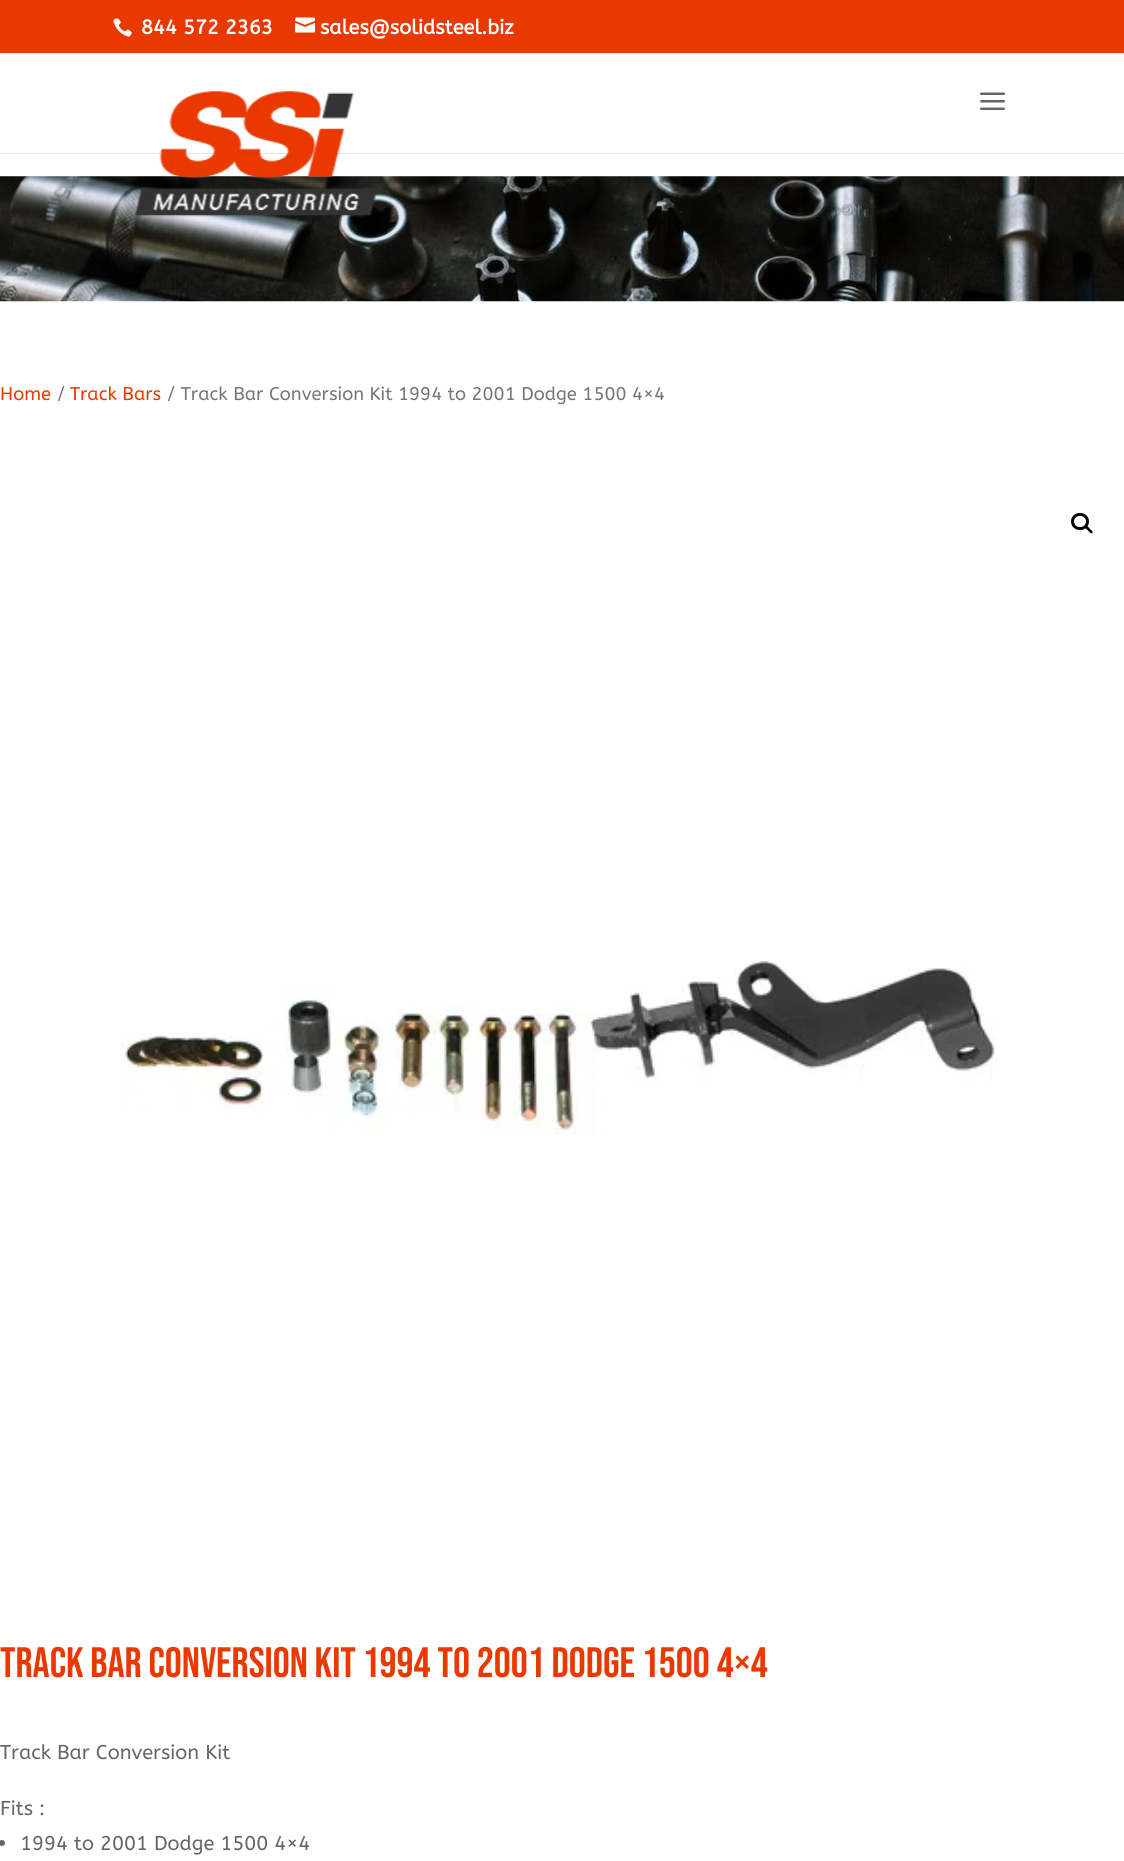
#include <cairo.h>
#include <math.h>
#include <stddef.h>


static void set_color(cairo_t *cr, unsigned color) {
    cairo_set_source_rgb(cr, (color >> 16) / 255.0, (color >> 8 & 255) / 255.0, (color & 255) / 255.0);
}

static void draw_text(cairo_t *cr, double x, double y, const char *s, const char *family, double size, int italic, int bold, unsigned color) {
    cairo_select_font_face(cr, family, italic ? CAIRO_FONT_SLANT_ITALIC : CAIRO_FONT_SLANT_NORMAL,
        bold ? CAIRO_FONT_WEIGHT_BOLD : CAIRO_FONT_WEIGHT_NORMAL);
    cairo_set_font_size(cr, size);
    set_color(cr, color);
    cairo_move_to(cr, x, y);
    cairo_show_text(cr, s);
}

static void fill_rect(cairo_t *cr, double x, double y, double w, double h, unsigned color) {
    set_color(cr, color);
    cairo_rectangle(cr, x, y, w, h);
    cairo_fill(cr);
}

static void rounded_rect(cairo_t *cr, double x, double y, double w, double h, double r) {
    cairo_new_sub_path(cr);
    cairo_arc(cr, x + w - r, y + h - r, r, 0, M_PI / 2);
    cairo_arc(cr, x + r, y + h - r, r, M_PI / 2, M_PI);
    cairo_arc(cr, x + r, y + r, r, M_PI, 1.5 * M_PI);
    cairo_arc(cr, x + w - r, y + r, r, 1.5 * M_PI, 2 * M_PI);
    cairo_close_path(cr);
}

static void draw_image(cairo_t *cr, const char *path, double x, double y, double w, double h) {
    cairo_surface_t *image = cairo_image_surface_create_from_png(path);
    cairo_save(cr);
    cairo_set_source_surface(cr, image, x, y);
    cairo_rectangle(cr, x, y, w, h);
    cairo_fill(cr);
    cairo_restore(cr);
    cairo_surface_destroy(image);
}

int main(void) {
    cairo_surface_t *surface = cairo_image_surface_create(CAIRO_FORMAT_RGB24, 1124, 1861);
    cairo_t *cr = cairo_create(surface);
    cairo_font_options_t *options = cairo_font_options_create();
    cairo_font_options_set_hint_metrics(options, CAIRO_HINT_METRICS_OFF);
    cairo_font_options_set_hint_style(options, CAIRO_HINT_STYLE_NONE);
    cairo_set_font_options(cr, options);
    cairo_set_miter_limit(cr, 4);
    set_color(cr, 0xFFFFFF);
    cairo_paint(cr);
    fill_rect(cr, 0, 0, 1124, 53, 0xEA3900);
    draw_image(cr, "assets/img1.png", 113, 18, 19, 19);
    draw_text(cr, 141, 34, "844 572 2363", "ABeeZee", 20, 0, 1, 0xFFFFFF);
    draw_image(cr, "assets/img2.png", 295, 17, 20, 16);
    draw_text(cr, 320, 34, "sales@solidsteel.biz", "ABeeZee", 20, 0, 1, 0xFFFFFF);
    fill_rect(cr, 0, 153, 1124, 1, 0xE6E6E6);
    draw_image(cr, "assets/img5.png", 0, 176, 1124, 126);
    draw_image(cr, "assets/img3.png", 134, 91, 243, 126);
    draw_image(cr, "assets/img4.png", 980, 92, 25, 18);
    draw_text(cr, 0, 400, "Home", "ABeeZee", 18.4, 0, 0, 0xEA3900);
    draw_text(cr, 57, 400, "/", "ABeeZee", 18.4, 0, 0, 0x767676);
    draw_text(cr, 70, 400, "Track Bars", "ABeeZee", 18.4, 0, 0, 0xEA3900);
    draw_text(cr, 167, 400, "/ Track Bar Conversion Kit 1994 to 2001 Dodge 1500 4×4", "ABeeZee", 18.4, 0, 0, 0x767676);
    rounded_rect(cr, 1072.5, 514.5, 15, 14, 7);
    set_color(cr, 0x000000);
    cairo_set_line_width(cr, 3);
    cairo_stroke(cr);
    cairo_new_path(cr);
    cairo_move_to(cr, 1085, 526);
    cairo_curve_to(cr, 1086.5, 524.5, 1089, 527.5, 1089.5, 528.5);
    cairo_curve_to(cr, 1090.5, 529.5, 1093.5, 531.5, 1092.5, 533);
    cairo_curve_to(cr, 1091, 534.5, 1088.5, 531, 1088, 530.5);
    cairo_curve_to(cr, 1087, 529.5, 1084, 527.5, 1085, 526);
    cairo_close_path(cr);
    cairo_fill(cr);
    draw_image(cr, "assets/img6.png", 120, 960, 877, 175);
    draw_text(cr, 0, 1677, "TRACK BAR CONVERSION KIT 1994 TO 2001 DODGE 1500 4×4", "Bebas Neue", 42.5, 0, 0, 0xEA3900);
    draw_text(cr, 0, 1759, "Track Bar Conversion Kit", "ABeeZee", 20, 0, 0, 0x666666);
    draw_text(cr, 0, 1815, "Fits :", "ABeeZee", 20, 0, 0, 0x666666);
    cairo_new_path(cr);
    cairo_arc(cr, 2, 1843, 3, 0, 2 * M_PI);
    cairo_fill(cr);
    draw_text(cr, 20, 1850, "1994 to 2001 Dodge 1500 4×4", "ABeeZee", 20, 0, 0, 0x666666);
    cairo_surface_write_to_png(surface, "output.png");
    cairo_font_options_destroy(options);
    cairo_destroy(cr);
    cairo_surface_destroy(surface);
    return 0;
}
